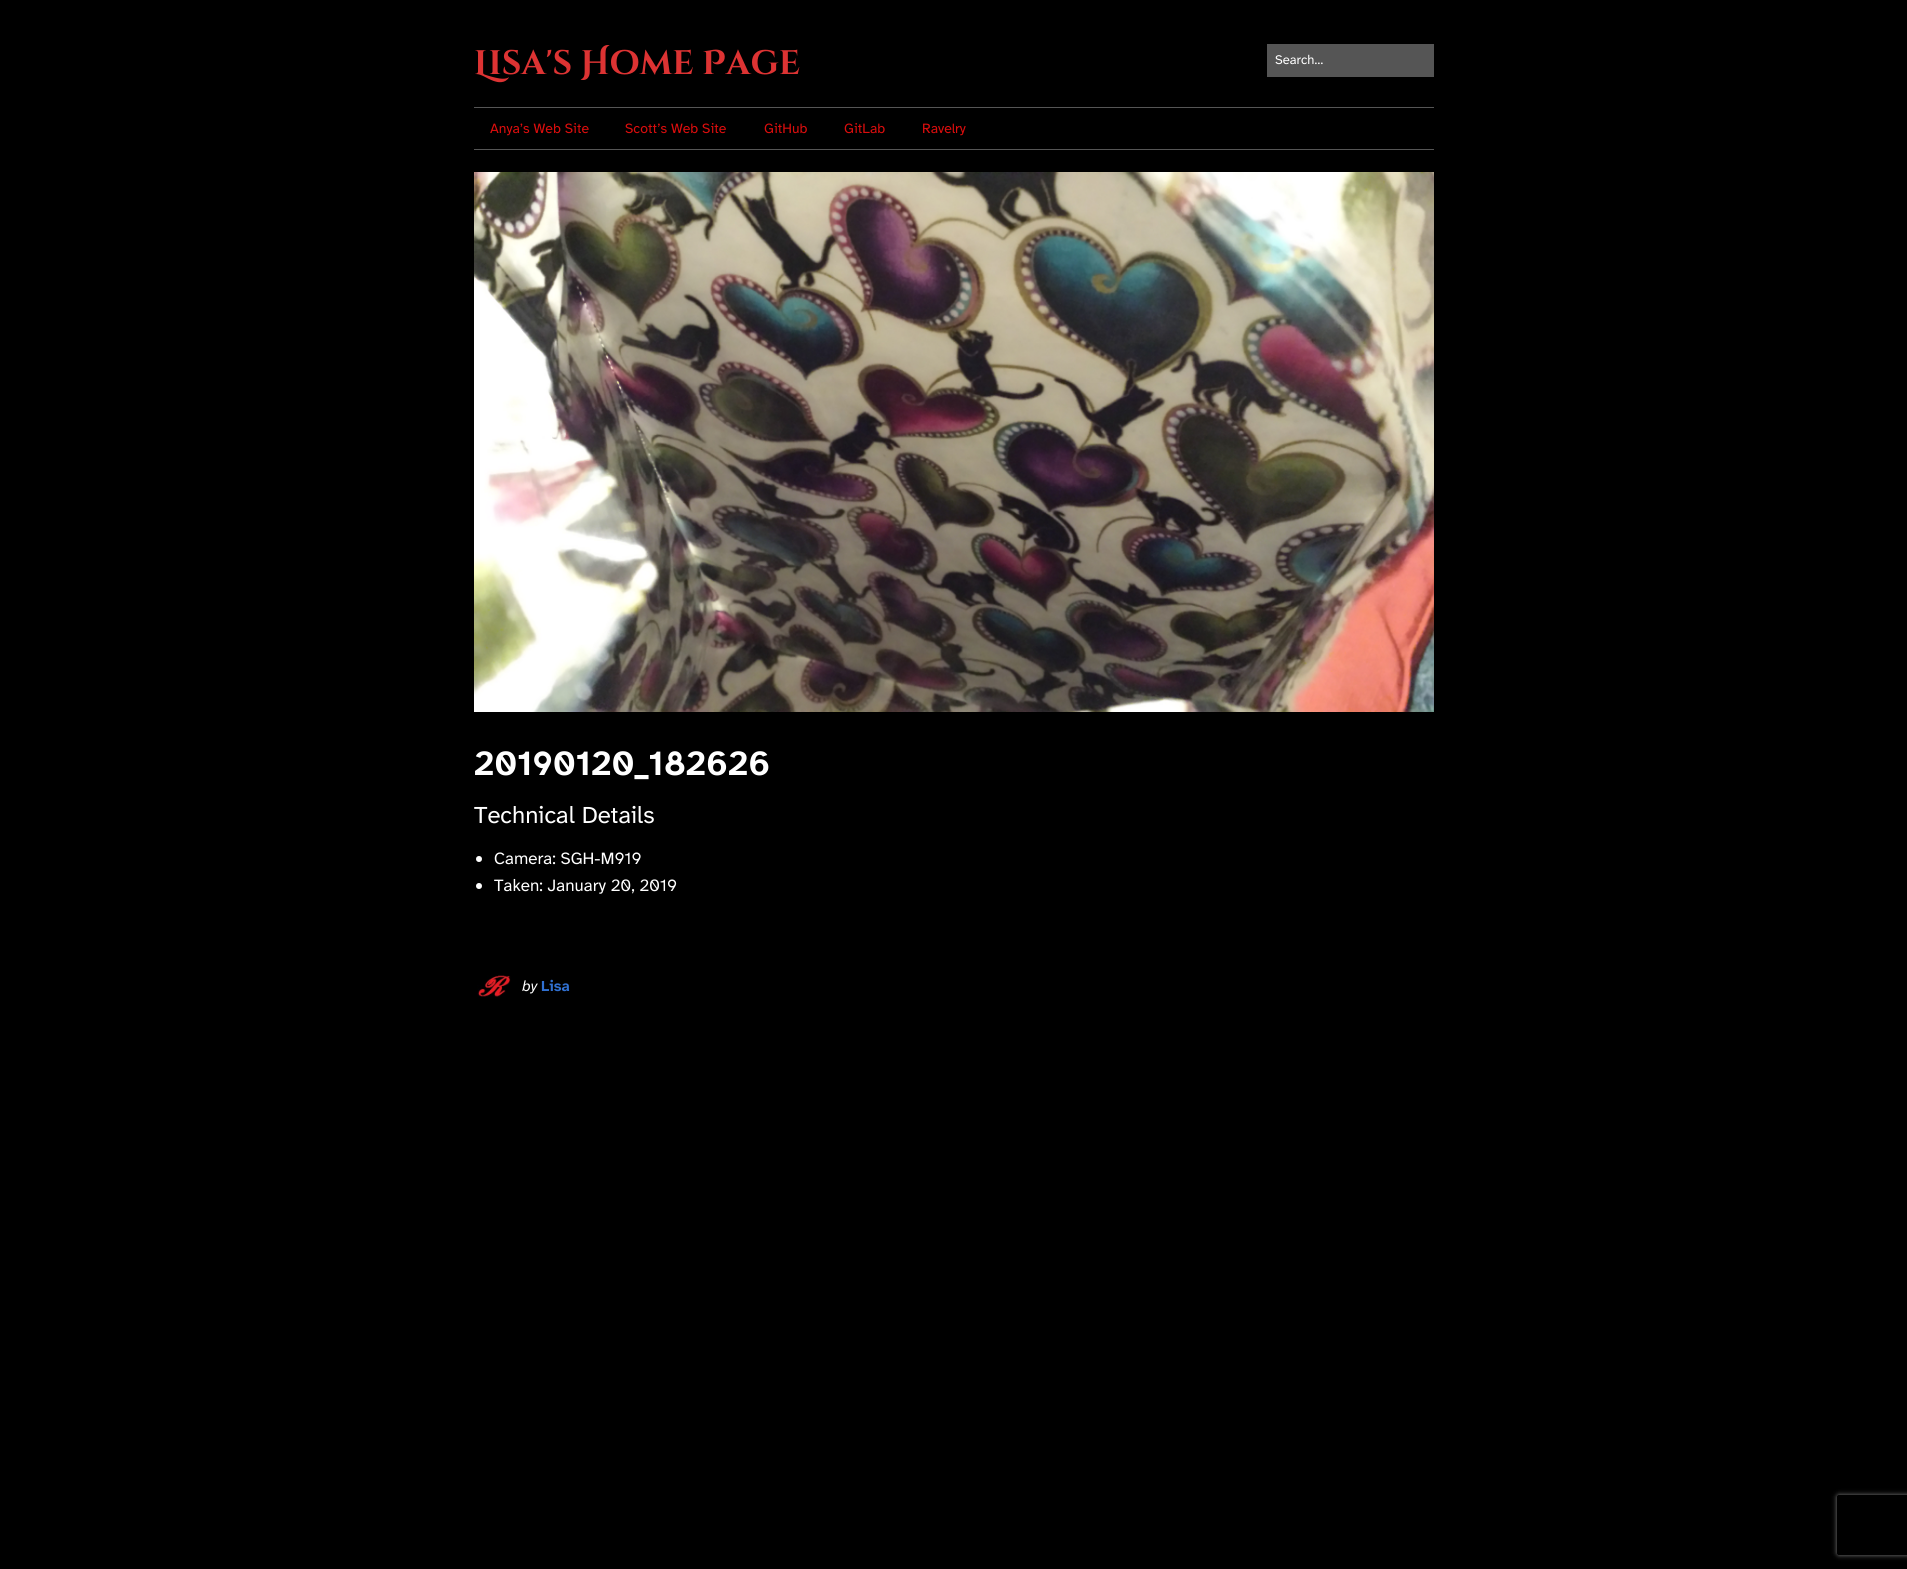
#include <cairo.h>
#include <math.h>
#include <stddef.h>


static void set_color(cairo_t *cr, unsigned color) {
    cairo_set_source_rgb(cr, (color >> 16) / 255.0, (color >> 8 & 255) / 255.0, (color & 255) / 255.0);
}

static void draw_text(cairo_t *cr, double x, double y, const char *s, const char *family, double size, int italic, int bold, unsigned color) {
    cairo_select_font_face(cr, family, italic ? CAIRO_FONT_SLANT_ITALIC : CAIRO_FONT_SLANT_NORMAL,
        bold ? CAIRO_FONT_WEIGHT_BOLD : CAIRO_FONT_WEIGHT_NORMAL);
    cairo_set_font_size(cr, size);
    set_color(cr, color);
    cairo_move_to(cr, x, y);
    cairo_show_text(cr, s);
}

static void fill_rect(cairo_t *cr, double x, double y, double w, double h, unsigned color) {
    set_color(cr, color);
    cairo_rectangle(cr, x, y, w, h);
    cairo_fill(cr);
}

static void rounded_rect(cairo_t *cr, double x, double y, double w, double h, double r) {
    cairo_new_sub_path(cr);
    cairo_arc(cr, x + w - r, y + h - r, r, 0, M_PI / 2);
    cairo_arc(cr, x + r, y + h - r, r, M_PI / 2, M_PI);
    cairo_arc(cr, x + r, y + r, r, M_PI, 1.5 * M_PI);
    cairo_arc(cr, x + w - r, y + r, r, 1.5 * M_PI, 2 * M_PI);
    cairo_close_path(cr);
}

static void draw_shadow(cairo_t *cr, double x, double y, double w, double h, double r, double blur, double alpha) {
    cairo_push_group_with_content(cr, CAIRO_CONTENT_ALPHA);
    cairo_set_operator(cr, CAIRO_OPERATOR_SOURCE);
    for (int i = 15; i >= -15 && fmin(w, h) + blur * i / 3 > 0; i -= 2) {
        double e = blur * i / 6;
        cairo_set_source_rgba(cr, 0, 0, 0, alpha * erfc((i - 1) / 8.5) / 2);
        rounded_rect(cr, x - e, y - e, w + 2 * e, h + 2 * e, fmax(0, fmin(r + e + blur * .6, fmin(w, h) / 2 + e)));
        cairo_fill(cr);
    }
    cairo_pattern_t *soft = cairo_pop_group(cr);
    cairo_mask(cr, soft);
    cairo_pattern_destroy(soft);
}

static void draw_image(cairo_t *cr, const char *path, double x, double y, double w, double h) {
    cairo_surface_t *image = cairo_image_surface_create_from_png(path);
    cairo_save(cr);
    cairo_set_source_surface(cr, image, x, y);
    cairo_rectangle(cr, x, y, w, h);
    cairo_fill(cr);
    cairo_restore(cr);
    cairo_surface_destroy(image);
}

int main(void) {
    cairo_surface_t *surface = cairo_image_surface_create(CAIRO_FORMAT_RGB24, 1907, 1569);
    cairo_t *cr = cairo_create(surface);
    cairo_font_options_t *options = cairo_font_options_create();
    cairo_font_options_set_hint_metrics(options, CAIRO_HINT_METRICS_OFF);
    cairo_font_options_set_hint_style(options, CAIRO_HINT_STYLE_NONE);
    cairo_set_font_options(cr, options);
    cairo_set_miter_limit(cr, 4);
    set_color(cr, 0x000000);
    cairo_paint(cr);
    draw_text(cr, 474, 74, "Lisa's Home Page", "Cinzel Decorative", 34, 0, 1, 0xDD3333);
    fill_rect(cr, 1267, 44, 167, 33, 0x555555);
    draw_text(cr, 1275, 64, "Search…", "Atkinson Hyperlegible Next", 13, 0, 0, 0xFFFFFF);
    fill_rect(cr, 474, 107, 960, 1, 0x555555);
    fill_rect(cr, 474, 149, 960, 1, 0x555555);
    draw_text(cr, 490, 133, "Anya’s Web Site", "Atkinson Hyperlegible", 14, 0, 0, 0xDD0D0D);
    draw_text(cr, 625, 133, "Scott’s Web Site", "Atkinson Hyperlegible", 14, 0, 0, 0xDD0D0D);
    draw_text(cr, 764, 133, "GitHub", "Atkinson Hyperlegible", 14, 0, 0, 0xDD0D0D);
    draw_text(cr, 844, 133, "GitLab", "Atkinson Hyperlegible", 14, 0, 0, 0xDD0D0D);
    draw_text(cr, 922, 133, "Ravelry", "Atkinson Hyperlegible", 14, 0, 0, 0xDD0D0D);
    draw_image(cr, "assets/img1.png", 474, 172, 960, 540);
    draw_text(cr, 474, 775, "20190120_182626", "Atkinson Hyperlegible Next", 35, 0, 1, 0xFFFFFF);
    draw_text(cr, 474, 823, "Technical Details", "Atkinson Hyperlegible Next", 24, 0, 0, 0xFFFFFF);
    cairo_new_path(cr);
    cairo_arc(cr, 479, 859, 3, 0, 2 * M_PI);
    cairo_fill(cr);
    draw_text(cr, 494, 864, "Camera: SGH-M919", "Atkinson Hyperlegible Next", 17, 0, 0, 0xFFFFFF);
    cairo_new_path(cr);
    cairo_arc(cr, 479, 886, 3, 0, 2 * M_PI);
    cairo_fill(cr);
    draw_text(cr, 494, 891, "Taken: January 20, 2019", "Atkinson Hyperlegible Next", 17, 0, 0, 0xFFFFFF);
    draw_image(cr, "assets/img2.png", 477, 975, 34, 22);
    draw_text(cr, 522, 991, "by", "Atkinson Hyperlegible Next", 15, 1, 0, 0xFFFFFF);
    draw_text(cr, 541, 991, "Lisa", "Atkinson Hyperlegible Next", 15, 0, 1, 0x3070D1);
    cairo_save(cr);
    cairo_set_fill_rule(cr, CAIRO_FILL_RULE_EVEN_ODD);
    cairo_new_path(cr);
    cairo_move_to(cr, 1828, 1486);
    cairo_line_to(cr, 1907, 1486);
    cairo_line_to(cr, 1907, 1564);
    cairo_line_to(cr, 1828, 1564);
    cairo_close_path(cr);
    cairo_move_to(cr, 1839, 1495);
    cairo_line_to(cr, 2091, 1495);
    cairo_curve_to(cr, 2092, 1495, 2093, 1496, 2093, 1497);
    cairo_line_to(cr, 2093, 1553);
    cairo_curve_to(cr, 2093, 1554, 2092, 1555, 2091, 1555);
    cairo_line_to(cr, 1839, 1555);
    cairo_curve_to(cr, 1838, 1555, 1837, 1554, 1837, 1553);
    cairo_line_to(cr, 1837, 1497);
    cairo_curve_to(cr, 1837, 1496, 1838, 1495, 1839, 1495);
    cairo_close_path(cr);
    cairo_clip(cr);
    set_color(cr, 0x808080);
    draw_shadow(cr, 1837, 1495, 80, 60, 2, 2.5, 1);
    cairo_restore(cr);
    cairo_surface_write_to_png(surface, "output.png");
    cairo_font_options_destroy(options);
    cairo_destroy(cr);
    cairo_surface_destroy(surface);
    return 0;
}
